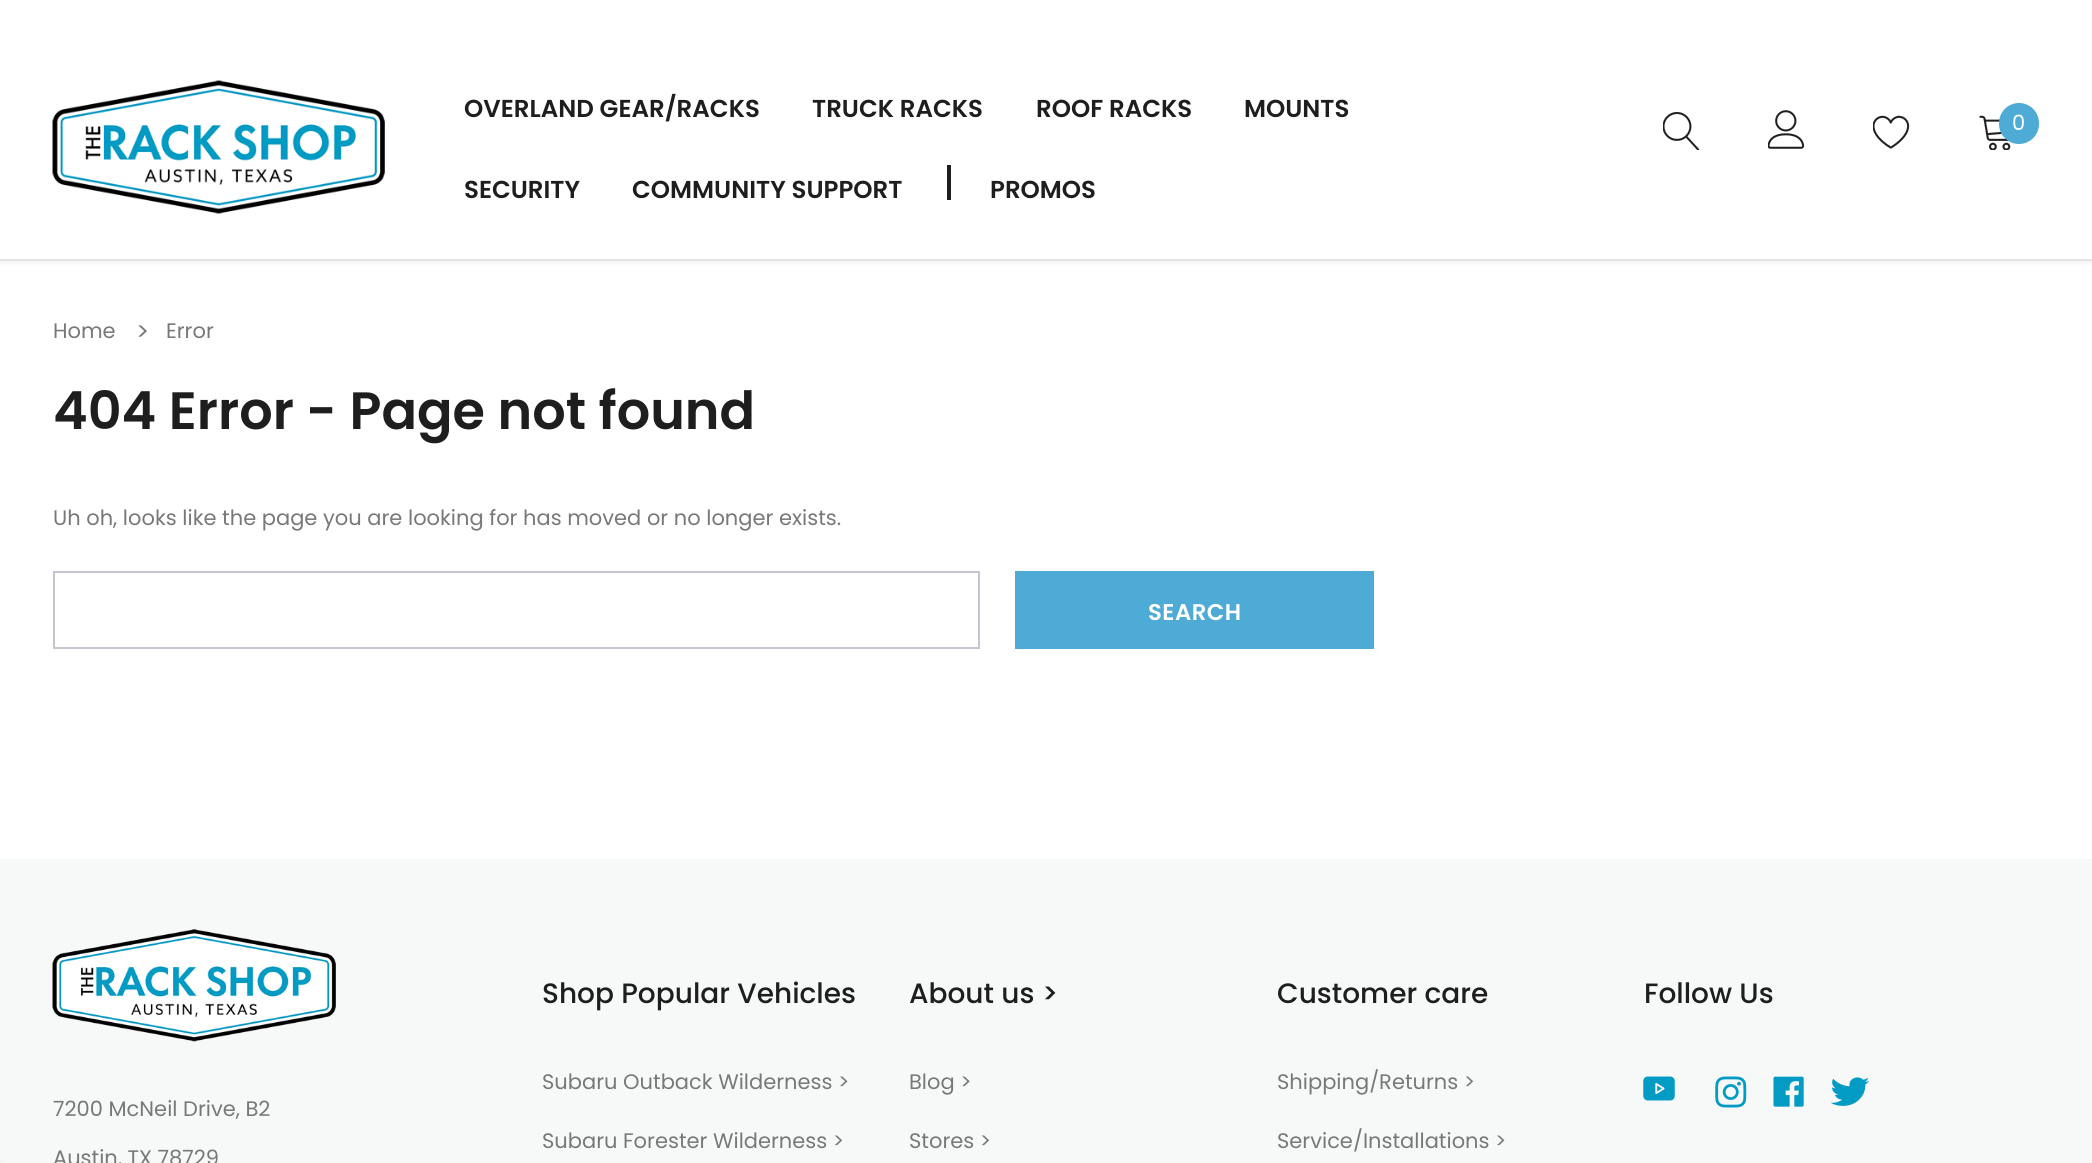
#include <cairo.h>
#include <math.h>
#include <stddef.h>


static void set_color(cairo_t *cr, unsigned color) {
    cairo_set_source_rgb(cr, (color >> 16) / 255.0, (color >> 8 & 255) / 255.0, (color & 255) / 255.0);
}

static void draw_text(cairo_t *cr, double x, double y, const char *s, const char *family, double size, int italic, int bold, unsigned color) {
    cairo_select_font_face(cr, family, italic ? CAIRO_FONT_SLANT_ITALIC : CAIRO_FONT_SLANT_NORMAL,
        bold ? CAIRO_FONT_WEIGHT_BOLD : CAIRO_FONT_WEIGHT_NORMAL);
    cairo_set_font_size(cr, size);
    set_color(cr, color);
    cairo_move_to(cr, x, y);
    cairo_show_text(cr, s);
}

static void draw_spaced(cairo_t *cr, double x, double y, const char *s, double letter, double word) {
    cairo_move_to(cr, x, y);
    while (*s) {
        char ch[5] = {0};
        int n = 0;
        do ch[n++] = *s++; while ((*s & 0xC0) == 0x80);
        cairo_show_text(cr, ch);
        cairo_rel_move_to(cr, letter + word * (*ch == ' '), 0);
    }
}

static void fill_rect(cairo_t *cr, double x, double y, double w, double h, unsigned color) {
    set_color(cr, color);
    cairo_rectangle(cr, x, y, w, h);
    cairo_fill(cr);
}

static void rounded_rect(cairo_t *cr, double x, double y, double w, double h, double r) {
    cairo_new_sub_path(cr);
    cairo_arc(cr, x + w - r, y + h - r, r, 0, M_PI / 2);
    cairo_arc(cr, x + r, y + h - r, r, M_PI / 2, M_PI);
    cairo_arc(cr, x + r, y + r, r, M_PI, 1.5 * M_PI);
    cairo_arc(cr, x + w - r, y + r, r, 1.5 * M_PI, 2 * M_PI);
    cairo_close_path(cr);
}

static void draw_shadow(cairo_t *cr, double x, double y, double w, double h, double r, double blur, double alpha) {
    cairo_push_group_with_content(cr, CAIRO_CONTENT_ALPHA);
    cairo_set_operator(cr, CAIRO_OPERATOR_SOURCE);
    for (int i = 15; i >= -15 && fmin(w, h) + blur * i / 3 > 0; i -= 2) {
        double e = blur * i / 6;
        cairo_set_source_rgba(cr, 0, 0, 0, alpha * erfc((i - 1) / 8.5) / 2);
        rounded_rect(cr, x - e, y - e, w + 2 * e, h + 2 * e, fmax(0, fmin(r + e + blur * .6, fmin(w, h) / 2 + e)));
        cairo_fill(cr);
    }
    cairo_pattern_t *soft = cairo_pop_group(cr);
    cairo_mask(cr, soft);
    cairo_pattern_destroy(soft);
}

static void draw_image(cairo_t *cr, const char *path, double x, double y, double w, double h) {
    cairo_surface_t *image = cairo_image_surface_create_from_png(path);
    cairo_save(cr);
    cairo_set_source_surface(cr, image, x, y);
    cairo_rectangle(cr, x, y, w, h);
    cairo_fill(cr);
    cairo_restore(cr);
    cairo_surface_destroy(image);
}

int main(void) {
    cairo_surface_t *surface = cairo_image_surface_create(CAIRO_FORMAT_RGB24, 2092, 1163);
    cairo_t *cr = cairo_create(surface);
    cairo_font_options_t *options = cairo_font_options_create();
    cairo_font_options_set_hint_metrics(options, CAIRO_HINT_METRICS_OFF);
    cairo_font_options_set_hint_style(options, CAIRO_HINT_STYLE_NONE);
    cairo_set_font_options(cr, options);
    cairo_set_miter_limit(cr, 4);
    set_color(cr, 0xFFFFFF);
    cairo_paint(cr);
    set_color(cr, 0x000000);
    draw_shadow(cr, 0, -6, 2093, 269, 0, 2, 0.06);
    fill_rect(cr, 0, 0, 2092, 259, 0xFFFFFF);
    fill_rect(cr, 0, 259, 2092, 2, 0xE5E5E5);
    draw_image(cr, "assets/img1.png", 52, 80, 333, 134);
    draw_text(cr, 464, 117, "OVERLAND GEAR/RACKS", "Poppins SemiBold", 24.5, 0, 0, 0x1E1E1E);
    draw_text(cr, 812, 117, "TRUCK RACKS", "Poppins SemiBold", 24.5, 0, 0, 0x1E1E1E);
    draw_text(cr, 1036, 117, "ROOF RACKS", "Poppins SemiBold", 24.5, 0, 0, 0x1E1E1E);
    draw_text(cr, 1244, 117, "MOUNTS", "Poppins SemiBold", 24.5, 0, 0, 0x1E1E1E);
    draw_text(cr, 464, 198, "SECURITY", "Poppins SemiBold", 24.5, 0, 0, 0x1E1E1E);
    draw_text(cr, 632, 198, "COMMUNITY SUPPORT", "Poppins SemiBold", 24.5, 0, 0, 0x1E1E1E);
    fill_rect(cr, 947, 165, 4, 35, 0x1E1E1E);
    draw_text(cr, 990, 198, "PROMOS", "Poppins SemiBold", 24.5, 0, 0, 0x1E1E1E);
    draw_image(cr, "assets/img2.png", 1663, 112, 37, 38);
    draw_image(cr, "assets/img3.png", 1768, 110, 37, 39);
    draw_image(cr, "assets/img4.png", 1873, 115, 37, 34);
    draw_image(cr, "assets/img5.png", 1979, 115, 32, 35);
    set_color(cr, 0x4DABD5);
    rounded_rect(cr, 1999, 103, 40, 41, 20);
    cairo_fill(cr);
    draw_text(cr, 2012, 130, "0", "Poppins", 21, 0, 0, 0xFFFFFF);
    draw_text(cr, 53, 338, "Home", "Poppins", 21, 0, 0, 0x787878);
    draw_text(cr, 136, 340, ">", "Poppins", 24.5, 0, 0, 0x787878);
    draw_text(cr, 166, 338, "Error", "Poppins", 21, 0, 0, 0x787878);
    draw_text(cr, 53, 429, "404 Error - Page not found", "Poppins SemiBold", 52.5, 0, 0, 0x1E1E1E);
    draw_text(cr, 53, 525, "Uh oh, looks like the page you are looking for has moved or no longer exists.", "Poppins", 21, 0, 0, 0x787878);
    cairo_rectangle(cr, 54, 572, 925, 76);
    set_color(cr, 0xC5C5CF);
    cairo_stroke(cr);
    fill_rect(cr, 1015, 571, 359, 78, 0x4DABD5);
    cairo_select_font_face(cr, "Poppins SemiBold", CAIRO_FONT_SLANT_NORMAL, CAIRO_FONT_WEIGHT_NORMAL);
    cairo_set_font_size(cr, 22.75);
    set_color(cr, 0xFFFFFF);
    draw_spaced(cr, 1148, 620, "SEARCH", 0.5, 0);
    fill_rect(cr, 0, 859, 2092, 304, 0xF7F9F9);
    fill_rect(cr, 0, 1160, 4, 3, 0xF5F5F5);
    draw_image(cr, "assets/img6.png", 52, 929, 284, 113);
    draw_text(cr, 53, 1116, "7200 McNeil Drive, B2", "Poppins", 21, 0, 0, 0x787878);
    draw_text(cr, 53, 1165, "Austin, TX 78729", "Poppins", 21, 0, 0, 0x787878);
    draw_text(cr, 542, 1003, "Shop Popular Vehicles", "Poppins Medium", 28, 0, 0, 0x1E1E1E);
    draw_text(cr, 542, 1089, "Subaru Outback Wilderness >", "Poppins", 21, 0, 0, 0x787878);
    draw_text(cr, 542, 1148, "Subaru Forester Wilderness >", "Poppins", 21, 0, 0, 0x787878);
    draw_text(cr, 909, 1003, "About us >", "Poppins Medium", 28, 0, 0, 0x1E1E1E);
    draw_text(cr, 909, 1089, "Blog >", "Poppins", 21, 0, 0, 0x787878);
    draw_text(cr, 909, 1148, "Stores >", "Poppins", 21, 0, 0, 0x787878);
    draw_text(cr, 1277, 1003, "Customer care", "Poppins Medium", 28, 0, 0, 0x1E1E1E);
    draw_text(cr, 1277, 1089, "Shipping/Returns >", "Poppins", 21, 0, 0, 0x787878);
    draw_text(cr, 1277, 1148, "Service/Installations >", "Poppins", 21, 0, 0, 0x787878);
    draw_text(cr, 1644, 1003, "Follow Us", "Poppins Medium", 28, 0, 0, 0x1E1E1E);
    draw_image(cr, "assets/img7.png", 1643, 1076, 32, 25);
    draw_image(cr, "assets/img8.png", 1715, 1076, 32, 32);
    draw_image(cr, "assets/img9.png", 1773, 1076, 31, 31);
    draw_image(cr, "assets/img10.png", 1831, 1077, 39, 29);
    cairo_surface_write_to_png(surface, "output.png");
    cairo_font_options_destroy(options);
    cairo_destroy(cr);
    cairo_surface_destroy(surface);
    return 0;
}
